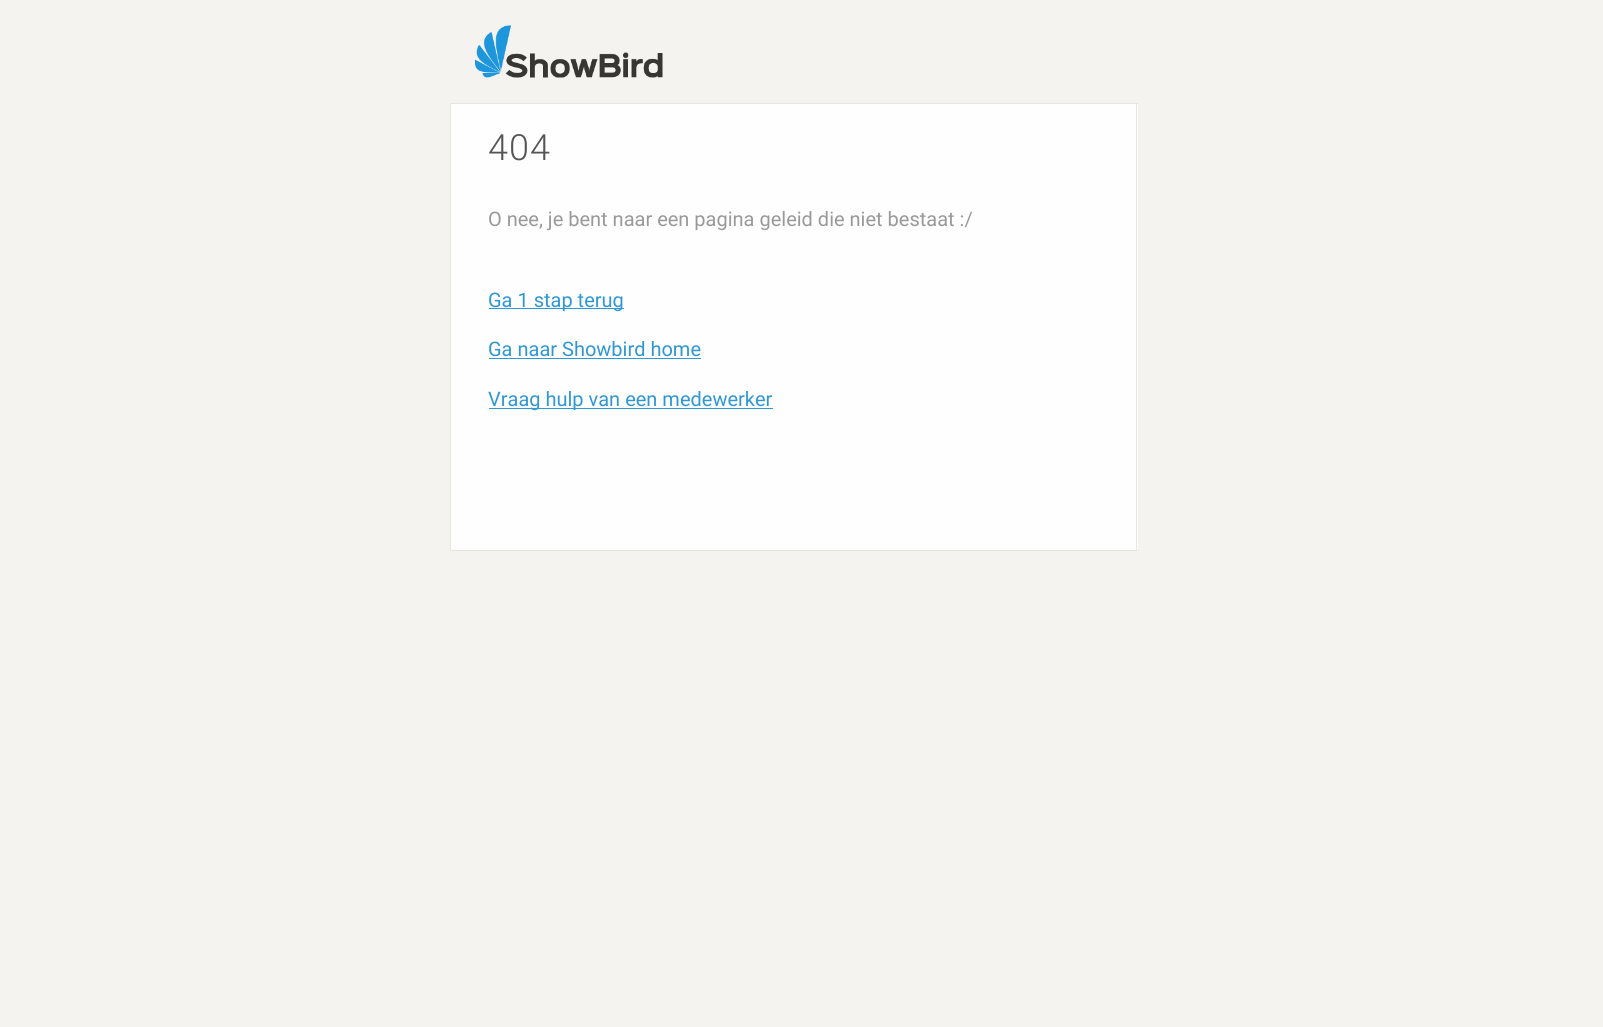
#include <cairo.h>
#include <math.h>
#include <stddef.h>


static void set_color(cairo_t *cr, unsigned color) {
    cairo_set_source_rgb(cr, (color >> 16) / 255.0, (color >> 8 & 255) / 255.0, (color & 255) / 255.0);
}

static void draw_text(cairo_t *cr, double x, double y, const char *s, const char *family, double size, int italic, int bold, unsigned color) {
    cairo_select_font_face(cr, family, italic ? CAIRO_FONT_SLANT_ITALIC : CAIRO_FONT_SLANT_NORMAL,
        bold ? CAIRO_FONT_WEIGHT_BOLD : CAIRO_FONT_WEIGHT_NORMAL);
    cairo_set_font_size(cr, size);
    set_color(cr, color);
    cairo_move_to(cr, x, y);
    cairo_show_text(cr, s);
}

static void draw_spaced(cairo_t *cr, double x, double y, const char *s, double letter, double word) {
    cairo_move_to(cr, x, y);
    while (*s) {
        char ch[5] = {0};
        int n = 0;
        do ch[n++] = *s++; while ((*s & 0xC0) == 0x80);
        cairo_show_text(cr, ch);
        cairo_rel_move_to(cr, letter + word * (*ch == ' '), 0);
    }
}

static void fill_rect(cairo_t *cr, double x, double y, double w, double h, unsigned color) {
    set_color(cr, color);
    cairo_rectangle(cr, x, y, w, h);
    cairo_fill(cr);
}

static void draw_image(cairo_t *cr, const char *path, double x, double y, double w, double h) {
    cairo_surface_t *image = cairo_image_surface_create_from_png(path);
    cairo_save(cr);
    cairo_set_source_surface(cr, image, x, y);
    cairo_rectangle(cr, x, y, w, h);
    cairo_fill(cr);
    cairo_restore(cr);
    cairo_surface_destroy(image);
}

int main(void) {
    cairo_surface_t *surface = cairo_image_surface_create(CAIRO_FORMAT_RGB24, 1603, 1027);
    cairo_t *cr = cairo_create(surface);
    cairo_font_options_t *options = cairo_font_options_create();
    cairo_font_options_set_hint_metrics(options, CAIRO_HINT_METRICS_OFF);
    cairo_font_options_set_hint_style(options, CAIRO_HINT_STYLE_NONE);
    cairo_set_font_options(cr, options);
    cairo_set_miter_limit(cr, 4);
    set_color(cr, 0xF4F3EF);
    cairo_paint(cr);
    draw_image(cr, "assets/img1.png", 475, 25, 188, 53);
    fill_rect(cr, 451, 104, 687, 446, 0xFEFEFE);
    fill_rect(cr, 450, 103, 688, 1, 0xE6E5E1);
    fill_rect(cr, 1136, 103, 1, 448, 0xE6E5E1);
    fill_rect(cr, 450, 550, 688, 1, 0xE6E5E1);
    fill_rect(cr, 450, 103, 1, 448, 0xE6E5E1);
    cairo_select_font_face(cr, "Roboto Light", CAIRO_FONT_SLANT_NORMAL, CAIRO_FONT_WEIGHT_NORMAL);
    cairo_set_font_size(cr, 36);
    set_color(cr, 0x555555);
    draw_spaced(cr, 488, 160, "404", 1, 0);
    draw_text(cr, 488, 226, "O nee, je bent naar een pagina geleid die niet bestaat :/", "Roboto", 20, 0, 0, 0x999999);
    fill_rect(cr, 489, 308, 135, 1, 0x2F98D4);
    draw_text(cr, 488, 307, "Ga 1 stap terug", "Roboto", 20, 0, 0, 0x2F98D4);
    draw_text(cr, 488, 356, "Ga naar Showbird home", "Roboto", 20, 0, 0, 0x2F98D4);
    fill_rect(cr, 489, 358, 212, 1, 0x2F98D4);
    fill_rect(cr, 489, 408, 284, 1, 0x2F98D4);
    draw_text(cr, 488, 406, "Vraag hulp van een medewerker", "Roboto", 20, 0, 0, 0x2F98D4);
    cairo_surface_write_to_png(surface, "output.png");
    cairo_font_options_destroy(options);
    cairo_destroy(cr);
    cairo_surface_destroy(surface);
    return 0;
}
